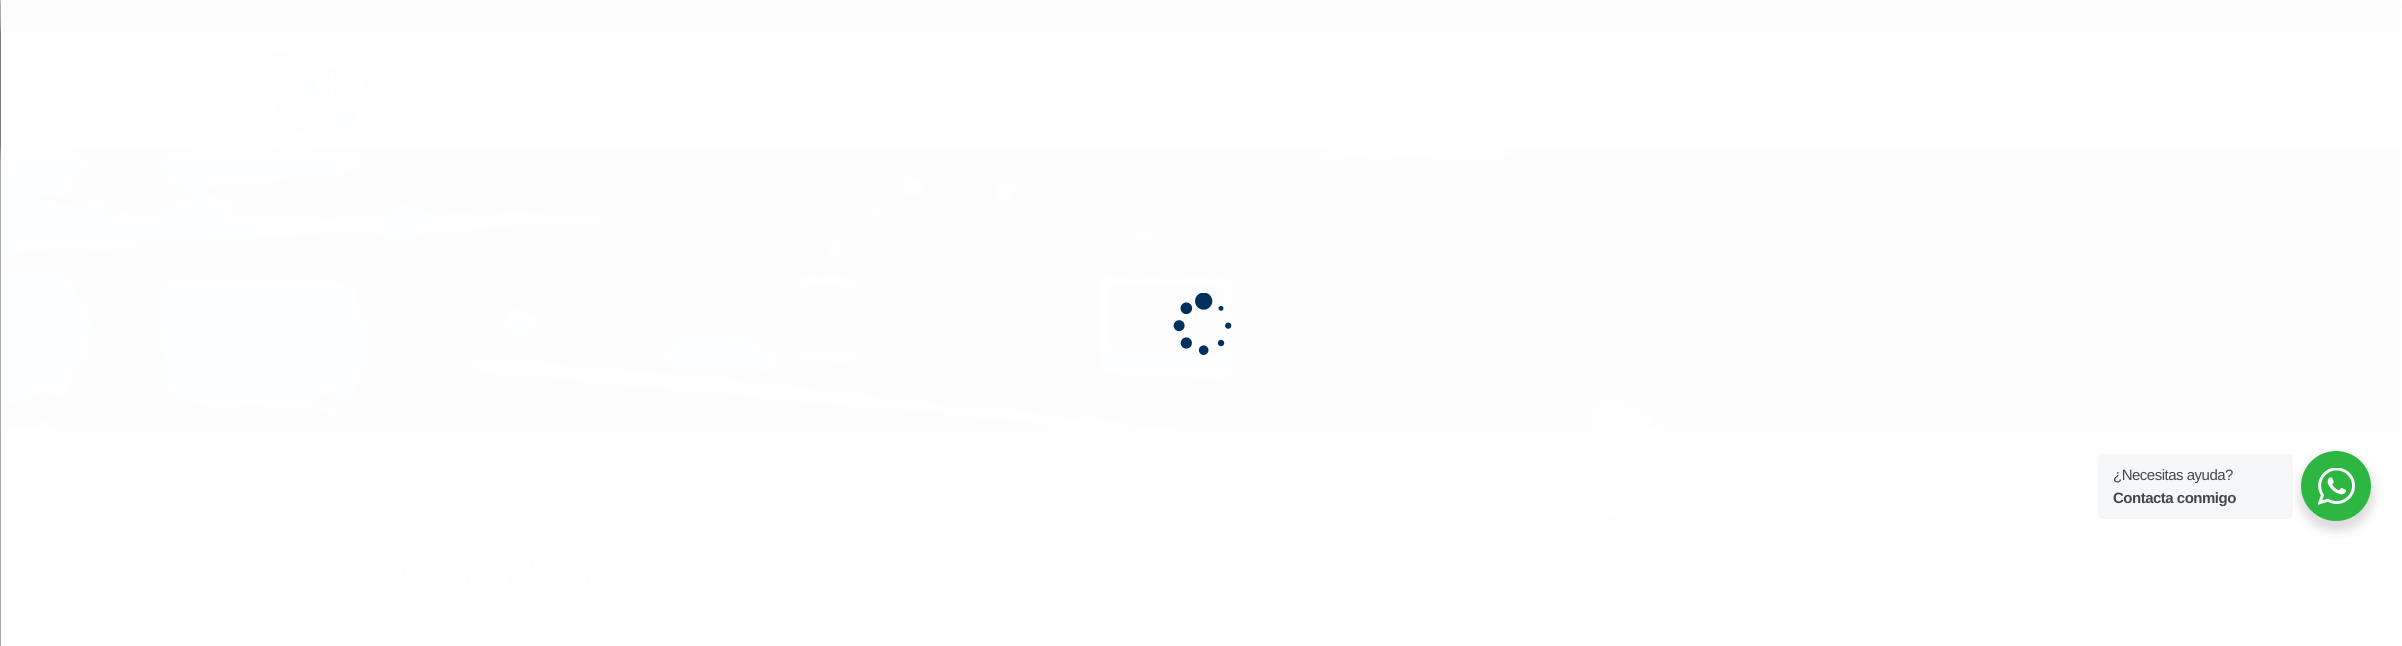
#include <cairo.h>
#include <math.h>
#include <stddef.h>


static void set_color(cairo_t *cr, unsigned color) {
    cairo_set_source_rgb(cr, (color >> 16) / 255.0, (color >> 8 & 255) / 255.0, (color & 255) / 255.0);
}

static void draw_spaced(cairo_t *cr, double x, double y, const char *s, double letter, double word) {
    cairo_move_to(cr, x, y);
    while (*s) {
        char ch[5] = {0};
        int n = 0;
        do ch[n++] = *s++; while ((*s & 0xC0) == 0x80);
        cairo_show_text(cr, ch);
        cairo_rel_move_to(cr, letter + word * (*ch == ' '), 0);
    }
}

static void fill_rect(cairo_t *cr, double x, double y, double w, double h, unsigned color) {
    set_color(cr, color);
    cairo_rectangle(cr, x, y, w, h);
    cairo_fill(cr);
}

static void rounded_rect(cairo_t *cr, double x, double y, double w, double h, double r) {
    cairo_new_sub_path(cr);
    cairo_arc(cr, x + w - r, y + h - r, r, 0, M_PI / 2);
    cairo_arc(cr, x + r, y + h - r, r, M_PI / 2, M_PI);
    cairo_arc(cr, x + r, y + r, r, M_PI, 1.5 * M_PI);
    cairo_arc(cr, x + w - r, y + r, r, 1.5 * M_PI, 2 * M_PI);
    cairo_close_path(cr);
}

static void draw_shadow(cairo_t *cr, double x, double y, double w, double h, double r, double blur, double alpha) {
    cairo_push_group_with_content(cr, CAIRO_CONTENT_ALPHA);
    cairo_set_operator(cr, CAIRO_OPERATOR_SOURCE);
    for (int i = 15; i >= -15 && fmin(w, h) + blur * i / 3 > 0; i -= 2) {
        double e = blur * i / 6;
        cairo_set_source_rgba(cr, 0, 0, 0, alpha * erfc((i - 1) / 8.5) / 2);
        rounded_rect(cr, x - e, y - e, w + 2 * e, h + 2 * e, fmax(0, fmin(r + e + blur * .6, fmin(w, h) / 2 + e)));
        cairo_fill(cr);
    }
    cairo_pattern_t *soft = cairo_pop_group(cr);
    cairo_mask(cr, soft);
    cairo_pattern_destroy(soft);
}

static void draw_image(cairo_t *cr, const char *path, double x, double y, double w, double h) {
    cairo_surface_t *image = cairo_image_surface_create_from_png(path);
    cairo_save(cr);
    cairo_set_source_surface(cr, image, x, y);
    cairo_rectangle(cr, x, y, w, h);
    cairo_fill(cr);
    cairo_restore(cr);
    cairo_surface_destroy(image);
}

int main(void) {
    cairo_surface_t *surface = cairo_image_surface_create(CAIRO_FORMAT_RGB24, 2402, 646);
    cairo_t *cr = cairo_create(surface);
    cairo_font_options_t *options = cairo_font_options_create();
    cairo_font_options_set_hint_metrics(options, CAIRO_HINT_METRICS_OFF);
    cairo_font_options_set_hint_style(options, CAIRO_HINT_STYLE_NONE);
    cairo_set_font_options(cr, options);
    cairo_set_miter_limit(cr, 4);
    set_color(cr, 0xFFFFFF);
    cairo_paint(cr);
    cairo_save(cr);
    cairo_set_fill_rule(cr, CAIRO_FILL_RULE_EVEN_ODD);
    cairo_new_path(cr);
    cairo_move_to(cr, 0, 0);
    cairo_line_to(cr, 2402, 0);
    cairo_line_to(cr, 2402, 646);
    cairo_line_to(cr, 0, 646);
    cairo_close_path(cr);
    cairo_move_to(cr, 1, 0);
    cairo_line_to(cr, 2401, 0);
    cairo_line_to(cr, 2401, 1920);
    cairo_line_to(cr, 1, 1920);
    cairo_close_path(cr);
    cairo_clip(cr);
    set_color(cr, 0x555555);
    draw_shadow(cr, 1, 0, 2400, 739, 0, 31, 1);
    cairo_restore(cr);
    fill_rect(cr, 1, 0, 2400, 30, 0x2C394C);
    draw_image(cr, "assets/img3.png", 1, 148, 2401, 282);
    cairo_set_source_rgba(cr, 0, 0, 0, 0.5);
    cairo_rectangle(cr, 1, 149, 2400, 281);
    cairo_fill(cr);
    cairo_save(cr);
    cairo_set_fill_rule(cr, CAIRO_FILL_RULE_EVEN_ODD);
    cairo_new_path(cr);
    cairo_move_to(cr, 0, 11);
    cairo_line_to(cr, 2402, 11);
    cairo_line_to(cr, 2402, 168);
    cairo_line_to(cr, 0, 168);
    cairo_close_path(cr);
    cairo_move_to(cr, 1, 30);
    cairo_line_to(cr, 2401, 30);
    cairo_line_to(cr, 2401, 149);
    cairo_line_to(cr, 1, 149);
    cairo_close_path(cr);
    cairo_clip(cr);
    set_color(cr, 0x000000);
    draw_shadow(cr, 1, 30, 2400, 119, 0, 6, 0.5);
    cairo_restore(cr);
    cairo_set_source_rgba(cr, 1, 1, 1, 0.1);
    cairo_rectangle(cr, 1, 30, 2400, 119);
    cairo_fill(cr);
    draw_image(cr, "assets/img2.png", 267, 47, 108, 89);
    draw_image(cr, "assets/img4.png", 263, 517, 16, 18);
    draw_image(cr, "assets/img5.png", 357, 517, 17, 18);
    draw_image(cr, "assets/img6.png", 266, 557, 355, 32);
    fill_rect(cr, 1608, 515, 10, 29, 0x11B5E6);
    cairo_set_source_rgba(cr, 1, 1, 1, 0.99);
    cairo_rectangle(cr, 1, 0, 2401, 646);
    cairo_fill(cr);
    draw_image(cr, "assets/img1.png", 1173, 293, 59, 62);
    set_color(cr, 0x000000);
    draw_shadow(cr, 2299, 456, 75, 75, 37.5, 5, 0.14);
    set_color(cr, 0xF5F7F9);
    rounded_rect(cr, 2098, 454, 195, 65, 5);
    cairo_fill(cr);
    cairo_select_font_face(cr, "Liberation Sans", CAIRO_FONT_SLANT_NORMAL, CAIRO_FONT_WEIGHT_NORMAL);
    cairo_set_font_size(cr, 15);
    set_color(cr, 0x43474E);
    draw_spaced(cr, 2113, 480, "¿Necesitas ayuda?", -0.5, 0);
    cairo_select_font_face(cr, "Liberation Sans", CAIRO_FONT_SLANT_NORMAL, CAIRO_FONT_WEIGHT_BOLD);
    draw_spaced(cr, 2113, 503, "Contacta conmigo", -0.5, 0);
    set_color(cr, 0x2DB742);
    cairo_new_path(cr);
    cairo_arc(cr, 2336, 486, 35, 0, 2 * M_PI);
    cairo_fill(cr);
    draw_image(cr, "assets/img7.png", 2318, 468, 37, 37);
    cairo_surface_write_to_png(surface, "output.png");
    cairo_font_options_destroy(options);
    cairo_destroy(cr);
    cairo_surface_destroy(surface);
    return 0;
}
